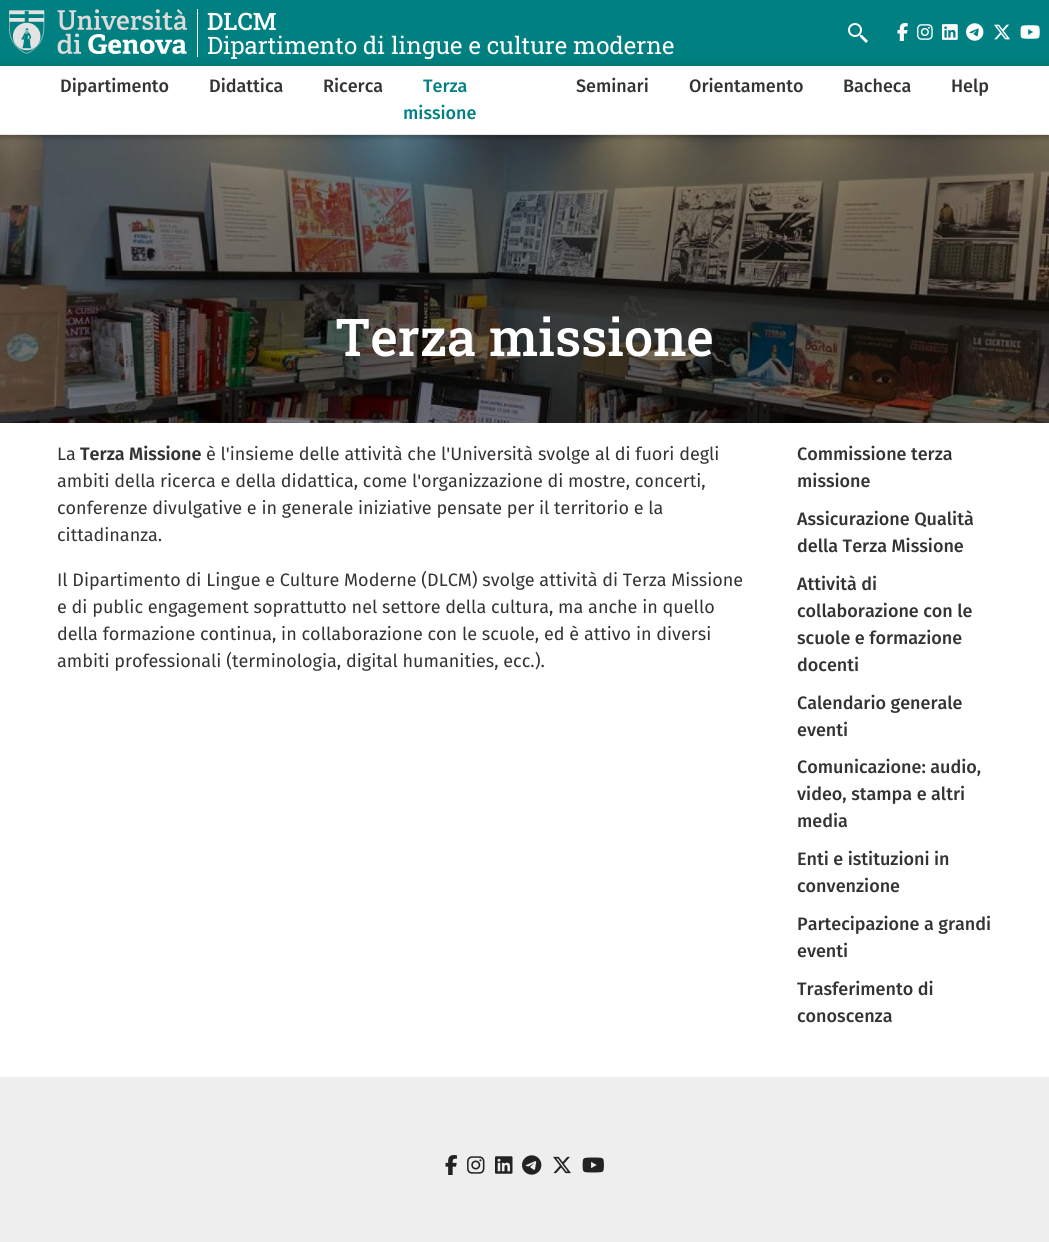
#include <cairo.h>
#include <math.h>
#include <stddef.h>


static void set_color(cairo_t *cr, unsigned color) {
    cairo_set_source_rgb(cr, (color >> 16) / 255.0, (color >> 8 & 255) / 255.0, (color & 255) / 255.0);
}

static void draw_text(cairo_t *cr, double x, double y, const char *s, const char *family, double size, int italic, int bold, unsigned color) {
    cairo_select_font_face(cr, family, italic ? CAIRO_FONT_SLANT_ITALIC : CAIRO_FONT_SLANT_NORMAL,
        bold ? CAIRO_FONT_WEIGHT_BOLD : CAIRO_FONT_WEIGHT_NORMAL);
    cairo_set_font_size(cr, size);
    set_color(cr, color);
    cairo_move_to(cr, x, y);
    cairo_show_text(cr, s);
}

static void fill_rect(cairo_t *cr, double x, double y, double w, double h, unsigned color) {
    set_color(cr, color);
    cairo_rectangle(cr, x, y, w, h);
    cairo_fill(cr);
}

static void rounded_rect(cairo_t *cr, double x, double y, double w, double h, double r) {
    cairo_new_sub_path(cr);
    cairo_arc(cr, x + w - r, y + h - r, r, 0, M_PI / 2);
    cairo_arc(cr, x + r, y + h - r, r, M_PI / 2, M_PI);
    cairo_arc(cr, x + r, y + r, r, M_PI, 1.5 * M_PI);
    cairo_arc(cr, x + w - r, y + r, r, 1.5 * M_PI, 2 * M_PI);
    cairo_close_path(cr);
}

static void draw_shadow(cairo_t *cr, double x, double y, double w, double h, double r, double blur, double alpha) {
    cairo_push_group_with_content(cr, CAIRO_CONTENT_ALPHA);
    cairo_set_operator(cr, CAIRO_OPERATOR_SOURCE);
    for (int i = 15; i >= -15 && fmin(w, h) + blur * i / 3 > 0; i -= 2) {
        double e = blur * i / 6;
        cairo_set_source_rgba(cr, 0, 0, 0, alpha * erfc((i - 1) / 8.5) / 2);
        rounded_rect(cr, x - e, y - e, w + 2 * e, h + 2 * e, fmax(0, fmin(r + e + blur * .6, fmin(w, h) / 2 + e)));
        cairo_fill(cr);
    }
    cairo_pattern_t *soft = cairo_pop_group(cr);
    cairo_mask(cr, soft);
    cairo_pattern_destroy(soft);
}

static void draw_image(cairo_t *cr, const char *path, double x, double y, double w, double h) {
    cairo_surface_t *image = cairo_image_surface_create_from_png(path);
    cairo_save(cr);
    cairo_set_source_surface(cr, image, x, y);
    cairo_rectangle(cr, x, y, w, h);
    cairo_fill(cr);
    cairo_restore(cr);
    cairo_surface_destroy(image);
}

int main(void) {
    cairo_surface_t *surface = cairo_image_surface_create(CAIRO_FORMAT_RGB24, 1049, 1242);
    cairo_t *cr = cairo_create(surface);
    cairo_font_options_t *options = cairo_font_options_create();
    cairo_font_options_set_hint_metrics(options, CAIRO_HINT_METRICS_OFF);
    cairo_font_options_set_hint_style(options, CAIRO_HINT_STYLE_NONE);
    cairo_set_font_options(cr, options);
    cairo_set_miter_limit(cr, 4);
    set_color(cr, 0xFFFFFF);
    cairo_paint(cr);
    fill_rect(cr, 0, 0, 1049, 66, 0x008080);
    draw_image(cr, "assets/img1.png", 9, 9, 178, 45);
    fill_rect(cr, 197, 9, 1, 48, 0xFFFFFF);
    draw_text(cr, 207, 30, "DLCM", "Roboto Slab Medium", 24, 0, 0, 0xFFFFFF);
    draw_text(cr, 207, 54, "Dipartimento di lingue e culture moderne", "Roboto Slab", 24, 0, 0, 0xFFFFFF);
    draw_image(cr, "assets/img2.png", 848, 23, 20, 20);
    draw_image(cr, "assets/img3.png", 897, 23, 11, 18);
    draw_image(cr, "assets/img4.png", 917, 24, 16, 16);
    draw_image(cr, "assets/img5.png", 942, 24, 16, 16);
    draw_image(cr, "assets/img6.png", 966, 23, 18, 18);
    draw_image(cr, "assets/img7.png", 994, 24, 16, 16);
    draw_image(cr, "assets/img8.png", 1020, 25, 20, 14);
    draw_image(cr, "assets/img9.png", 0, 135, 1049, 288);
    set_color(cr, 0x000000);
    draw_shadow(cr, 0, 69, 1049, 69, 0, 1.5, 0.15);
    draw_shadow(cr, 0, 66, 1049, 69, 0, 5, 0.15);
    fill_rect(cr, 0, 66, 1049, 68, 0xFFFFFF);
    fill_rect(cr, 0, 134, 1049, 1, 0xE6E6E6);
    draw_text(cr, 60, 92, "Dipartimento", "Fira Sans Medium", 18, 0, 0, 0x333333);
    draw_text(cr, 209, 92, "Didattica", "Fira Sans Medium", 18, 0, 0, 0x333333);
    draw_text(cr, 323, 92, "Ricerca", "Fira Sans Medium", 18, 0, 0, 0x333333);
    draw_text(cr, 423, 92, "Terza", "Fira Sans Medium", 18, 0, 0, 0x008080);
    draw_text(cr, 403, 119, "missione", "Fira Sans Medium", 18, 0, 0, 0x008080);
    draw_text(cr, 576, 92, "Seminari", "Fira Sans Medium", 18, 0, 0, 0x333333);
    draw_text(cr, 689, 92, "Orientamento", "Fira Sans Medium", 18, 0, 0, 0x333333);
    draw_text(cr, 843, 92, "Bacheca", "Fira Sans Medium", 18, 0, 0, 0x333333);
    draw_text(cr, 951, 92, "Help", "Fira Sans Medium", 18, 0, 0, 0x333333);
    draw_text(cr, 335, 356, "Terza missione", "Roboto Slab Medium", 52, 0, 0, 0xFFFFFF);
    draw_text(cr, 57, 460, "La", "Fira Sans", 18, 0, 0, 0x333333);
    draw_text(cr, 80, 460, "Terza Missione", "Fira Sans SemiBold", 18, 0, 0, 0x333333);
    draw_text(cr, 206, 460, "è l'insieme delle attività che l'Università svolge al di fuori degli", "Fira Sans", 18, 0, 0, 0x333333);
    draw_text(cr, 57, 487, "ambiti della ricerca e della didattica, come l'organizzazione di mostre, concerti,", "Fira Sans", 18, 0, 0, 0x333333);
    draw_text(cr, 57, 514, "conferenze divulgative e in generale iniziative pensate per il territorio e la", "Fira Sans", 18, 0, 0, 0x333333);
    draw_text(cr, 57, 541, "cittadinanza.", "Fira Sans", 18, 0, 0, 0x333333);
    draw_text(cr, 57, 586, "Il Dipartimento di Lingue e Culture Moderne (DLCM) svolge attività di Terza Missione", "Fira Sans", 18, 0, 0, 0x333333);
    draw_text(cr, 57, 613, "e di public engagement soprattutto nel settore della cultura, ma anche in quello", "Fira Sans", 18, 0, 0, 0x333333);
    draw_text(cr, 57, 640, "della formazione continua, in collaborazione con le scuole, ed è attivo in diversi", "Fira Sans", 18, 0, 0, 0x333333);
    draw_text(cr, 57, 667, "ambiti professionali (terminologia, digital humanities, ecc.).", "Fira Sans", 18, 0, 0, 0x333333);
    draw_text(cr, 797, 460, "Commissione terza", "Fira Sans Medium", 18, 0, 0, 0x333333);
    draw_text(cr, 797, 487, "missione", "Fira Sans Medium", 18, 0, 0, 0x333333);
    draw_text(cr, 797, 525, "Assicurazione Qualità", "Fira Sans Medium", 18, 0, 0, 0x333333);
    draw_text(cr, 797, 552, "della Terza Missione", "Fira Sans Medium", 18, 0, 0, 0x333333);
    draw_text(cr, 797, 590, "Attività di", "Fira Sans Medium", 18, 0, 0, 0x333333);
    draw_text(cr, 797, 617, "collaborazione con le", "Fira Sans Medium", 18, 0, 0, 0x333333);
    draw_text(cr, 797, 644, "scuole e formazione", "Fira Sans Medium", 18, 0, 0, 0x333333);
    draw_text(cr, 797, 671, "docenti", "Fira Sans Medium", 18, 0, 0, 0x333333);
    draw_text(cr, 797, 709, "Calendario generale", "Fira Sans Medium", 18, 0, 0, 0x333333);
    draw_text(cr, 797, 736, "eventi", "Fira Sans Medium", 18, 0, 0, 0x333333);
    draw_text(cr, 797, 773, "Comunicazione: audio,", "Fira Sans Medium", 18, 0, 0, 0x333333);
    draw_text(cr, 797, 800, "video, stampa e altri", "Fira Sans Medium", 18, 0, 0, 0x333333);
    draw_text(cr, 797, 827, "media", "Fira Sans Medium", 18, 0, 0, 0x333333);
    draw_text(cr, 797, 865, "Enti e istituzioni in", "Fira Sans Medium", 18, 0, 0, 0x333333);
    draw_text(cr, 797, 892, "convenzione", "Fira Sans Medium", 18, 0, 0, 0x333333);
    draw_text(cr, 797, 930, "Partecipazione a grandi", "Fira Sans Medium", 18, 0, 0, 0x333333);
    draw_text(cr, 797, 957, "eventi", "Fira Sans Medium", 18, 0, 0, 0x333333);
    draw_text(cr, 797, 995, "Trasferimento di", "Fira Sans Medium", 18, 0, 0, 0x333333);
    draw_text(cr, 797, 1022, "conoscenza", "Fira Sans Medium", 18, 0, 0, 0x333333);
    fill_rect(cr, 0, 1077, 1049, 165, 0xEEEEEE);
    draw_image(cr, "assets/img10.png", 445, 1155, 12, 20);
    draw_image(cr, "assets/img11.png", 467, 1156, 18, 18);
    draw_image(cr, "assets/img12.png", 495, 1156, 18, 18);
    draw_image(cr, "assets/img13.png", 522, 1155, 20, 20);
    draw_image(cr, "assets/img14.png", 553, 1156, 18, 18);
    draw_image(cr, "assets/img15.png", 582, 1157, 22, 16);
    cairo_surface_write_to_png(surface, "output.png");
    cairo_font_options_destroy(options);
    cairo_destroy(cr);
    cairo_surface_destroy(surface);
    return 0;
}
